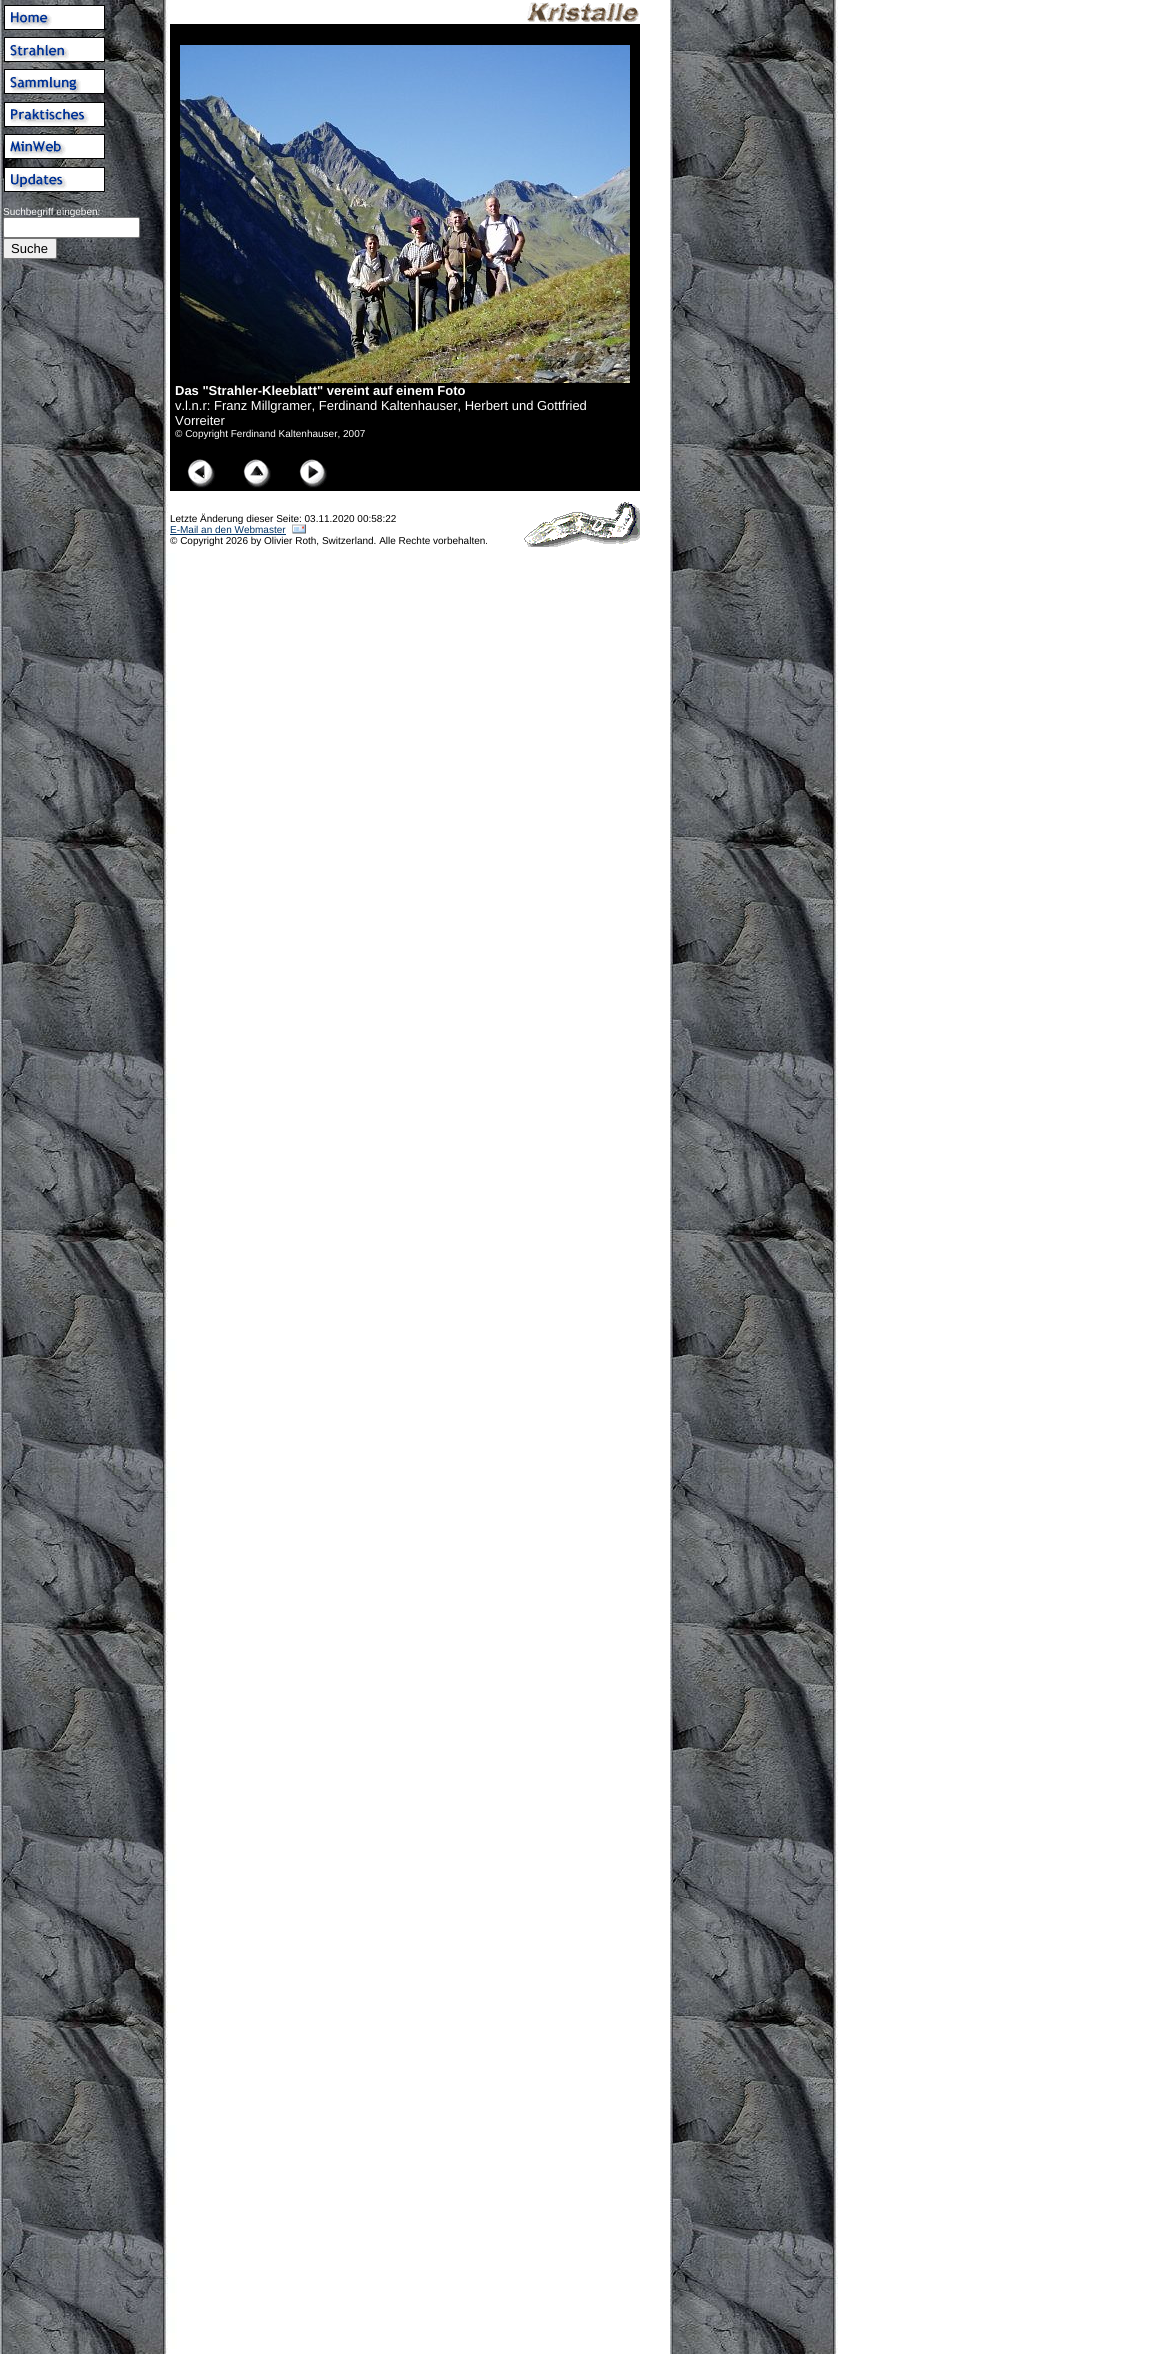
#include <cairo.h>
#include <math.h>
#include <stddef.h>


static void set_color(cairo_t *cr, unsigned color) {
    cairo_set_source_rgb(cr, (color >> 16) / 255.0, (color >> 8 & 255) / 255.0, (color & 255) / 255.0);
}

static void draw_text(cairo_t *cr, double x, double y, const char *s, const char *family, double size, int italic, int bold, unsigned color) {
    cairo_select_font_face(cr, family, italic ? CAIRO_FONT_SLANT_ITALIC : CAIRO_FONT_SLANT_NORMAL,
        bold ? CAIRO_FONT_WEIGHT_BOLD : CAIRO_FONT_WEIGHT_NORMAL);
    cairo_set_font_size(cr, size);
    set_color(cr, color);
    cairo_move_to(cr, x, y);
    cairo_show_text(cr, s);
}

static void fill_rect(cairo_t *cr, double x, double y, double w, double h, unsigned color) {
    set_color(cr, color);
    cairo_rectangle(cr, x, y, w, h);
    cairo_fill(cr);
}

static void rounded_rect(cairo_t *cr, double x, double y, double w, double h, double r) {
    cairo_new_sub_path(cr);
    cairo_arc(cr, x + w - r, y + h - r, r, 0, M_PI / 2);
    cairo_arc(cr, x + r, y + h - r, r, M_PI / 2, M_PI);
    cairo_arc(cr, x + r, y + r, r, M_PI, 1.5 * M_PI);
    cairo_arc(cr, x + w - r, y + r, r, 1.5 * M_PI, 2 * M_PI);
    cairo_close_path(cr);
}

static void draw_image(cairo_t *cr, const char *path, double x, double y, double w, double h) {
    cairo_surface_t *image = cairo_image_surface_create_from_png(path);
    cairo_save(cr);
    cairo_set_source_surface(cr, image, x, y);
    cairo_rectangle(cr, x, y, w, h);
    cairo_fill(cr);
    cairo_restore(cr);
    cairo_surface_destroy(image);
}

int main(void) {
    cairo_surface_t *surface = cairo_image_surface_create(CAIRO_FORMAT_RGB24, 1167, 2354);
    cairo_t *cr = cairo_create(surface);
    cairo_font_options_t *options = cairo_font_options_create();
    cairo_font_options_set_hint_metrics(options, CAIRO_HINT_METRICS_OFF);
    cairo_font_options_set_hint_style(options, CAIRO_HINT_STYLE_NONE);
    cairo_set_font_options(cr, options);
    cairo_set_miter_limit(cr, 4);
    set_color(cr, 0xFFFFFF);
    cairo_paint(cr);
    draw_image(cr, "assets/img1.png", 0, 0, 838, 2354);
    draw_image(cr, "assets/img2.png", 4, 5, 101, 187);
    draw_text(cr, 3, 215, "Suchbegriff eingeben:", "Liberation Sans", 10, 0, 0, 0xFFFFFF);
    rounded_rect(cr, 3.5, 217.5, 136, 20, 1.5);
    cairo_fill_preserve(cr);
    set_color(cr, 0x767676);
    cairo_set_line_width(cr, 1);
    cairo_stroke(cr);
    set_color(cr, 0xEFEFEF);
    rounded_rect(cr, 3.5, 238.5, 53, 20, 1.5);
    cairo_fill_preserve(cr);
    set_color(cr, 0x767676);
    cairo_stroke(cr);
    draw_text(cr, 11, 253, "Suche", "Liberation Sans", 13, 0, 0, 0x000000);
    draw_image(cr, "assets/img3.png", 527, 2, 112, 20);
    fill_rect(cr, 170, 24, 470, 467, 0x000000);
    draw_image(cr, "assets/img4.png", 180, 45, 450, 338);
    draw_text(cr, 175, 395, "Das \"Strahler-Kleeblatt\" vereint auf einem Foto", "Liberation Sans", 13, 0, 1, 0xFFFFFF);
    draw_text(cr, 175, 410, "v.l.n.r: Franz Millgramer, Ferdinand Kaltenhauser, Herbert und Gottfried", "Liberation Sans", 13, 0, 0, 0xFFFFFF);
    draw_text(cr, 175, 425, "Vorreiter", "Liberation Sans", 13, 0, 0, 0xFFFFFF);
    draw_text(cr, 175, 437, "© Copyright Ferdinand Kaltenhauser, 2007", "Liberation Sans", 10, 0, 0, 0xFFFFFF);
    draw_image(cr, "assets/img5.png", 187, 459, 28, 29);
    draw_image(cr, "assets/img6.png", 243, 459, 28, 29);
    draw_image(cr, "assets/img7.png", 299, 459, 28, 29);
    draw_text(cr, 170, 522, "Letzte Änderung dieser Seite: 03.11.2020 00:58:22", "Liberation Sans", 10, 0, 0, 0x000000);
    draw_image(cr, "assets/img8.png", 524, 502, 116, 45);
    draw_text(cr, 170, 533, "E-Mail an den Webmaster", "Liberation Sans", 10, 0, 0, 0x003366);
    fill_rect(cr, 170, 534, 116, 1, 0x003366);
    draw_image(cr, "assets/img9.png", 292, 524, 14, 10);
    draw_text(cr, 170, 544, "© Copyright 2026 by Olivier Roth, Switzerland. Alle Rechte vorbehalten.", "Liberation Sans", 10, 0, 0, 0x000000);
    cairo_surface_write_to_png(surface, "output.png");
    cairo_font_options_destroy(options);
    cairo_destroy(cr);
    cairo_surface_destroy(surface);
    return 0;
}
